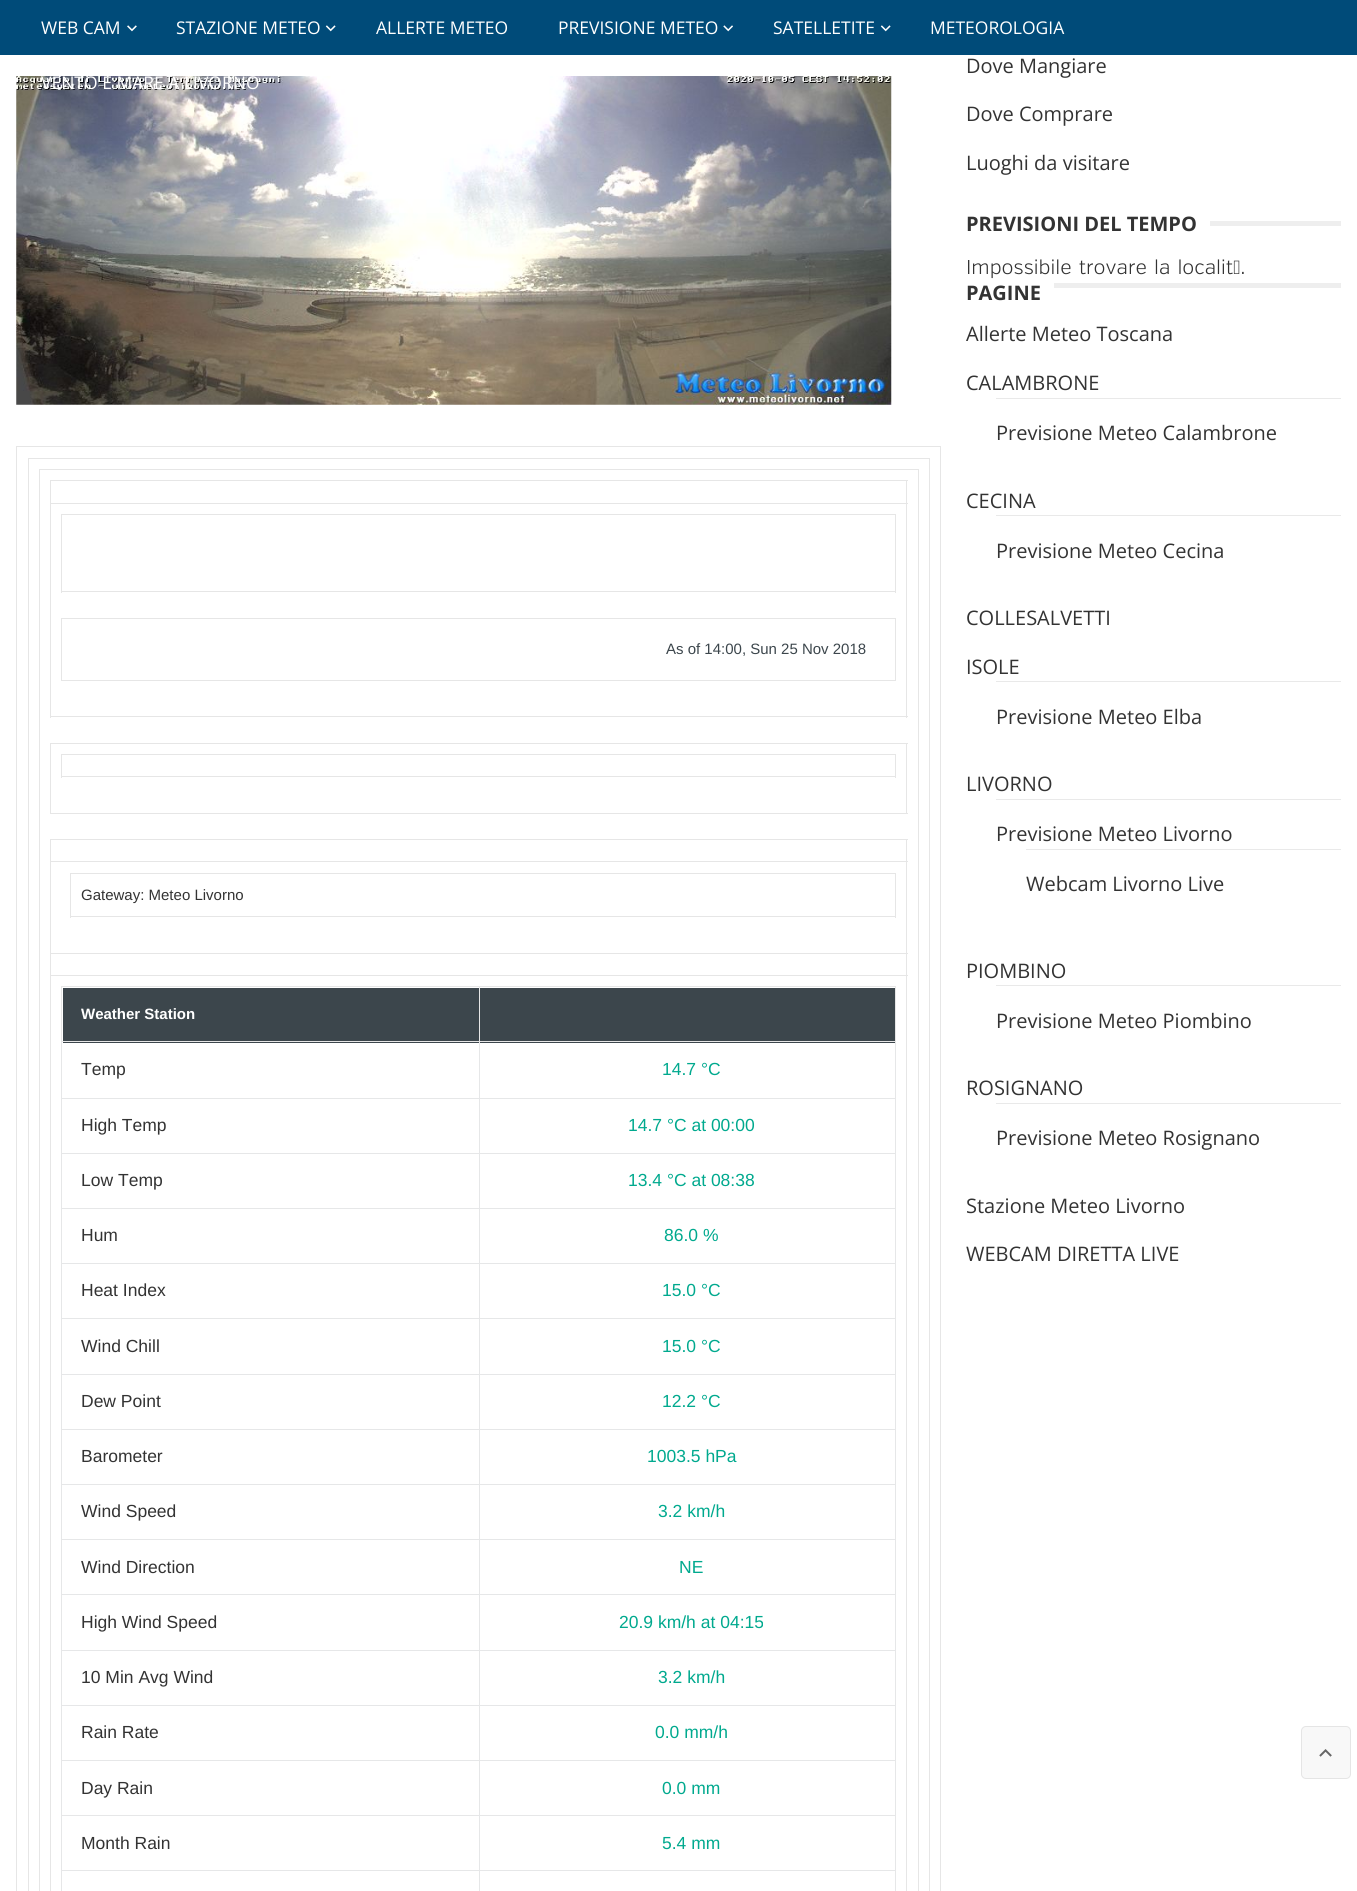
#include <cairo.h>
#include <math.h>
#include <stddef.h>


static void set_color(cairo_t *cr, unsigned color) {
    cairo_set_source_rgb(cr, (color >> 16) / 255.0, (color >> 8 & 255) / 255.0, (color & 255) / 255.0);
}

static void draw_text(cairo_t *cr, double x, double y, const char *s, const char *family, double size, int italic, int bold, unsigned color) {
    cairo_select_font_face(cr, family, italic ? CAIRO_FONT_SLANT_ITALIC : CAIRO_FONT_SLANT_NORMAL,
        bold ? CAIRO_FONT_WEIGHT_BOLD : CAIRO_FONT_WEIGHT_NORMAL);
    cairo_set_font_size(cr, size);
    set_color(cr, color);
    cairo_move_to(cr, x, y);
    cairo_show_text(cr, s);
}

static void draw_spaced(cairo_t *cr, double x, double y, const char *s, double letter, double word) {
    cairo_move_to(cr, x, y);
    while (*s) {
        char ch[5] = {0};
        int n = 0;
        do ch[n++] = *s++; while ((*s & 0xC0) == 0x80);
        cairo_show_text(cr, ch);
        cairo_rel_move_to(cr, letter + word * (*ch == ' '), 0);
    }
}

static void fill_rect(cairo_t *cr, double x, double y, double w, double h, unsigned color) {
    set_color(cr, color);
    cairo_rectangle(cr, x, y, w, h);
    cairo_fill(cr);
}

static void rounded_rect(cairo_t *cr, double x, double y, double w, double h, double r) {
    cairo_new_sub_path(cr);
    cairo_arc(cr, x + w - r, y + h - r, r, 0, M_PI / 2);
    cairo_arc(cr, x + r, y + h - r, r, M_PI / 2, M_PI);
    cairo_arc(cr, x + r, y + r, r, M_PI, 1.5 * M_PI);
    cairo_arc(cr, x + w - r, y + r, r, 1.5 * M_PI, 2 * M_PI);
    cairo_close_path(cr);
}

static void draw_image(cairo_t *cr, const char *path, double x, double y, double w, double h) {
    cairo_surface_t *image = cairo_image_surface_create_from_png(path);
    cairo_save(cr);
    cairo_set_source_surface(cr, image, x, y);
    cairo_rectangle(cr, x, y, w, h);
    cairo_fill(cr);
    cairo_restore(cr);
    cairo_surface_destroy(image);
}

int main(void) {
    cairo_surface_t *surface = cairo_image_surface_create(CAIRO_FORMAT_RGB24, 1357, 1891);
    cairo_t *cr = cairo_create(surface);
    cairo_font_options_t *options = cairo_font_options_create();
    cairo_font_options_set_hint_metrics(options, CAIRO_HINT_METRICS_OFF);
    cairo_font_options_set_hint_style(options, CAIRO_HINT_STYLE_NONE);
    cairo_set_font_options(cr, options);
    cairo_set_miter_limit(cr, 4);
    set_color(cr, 0xFFFFFF);
    cairo_paint(cr);
    fill_rect(cr, 0, 0, 1357, 55, 0x004B79);
    draw_text(cr, 41, 34, "WEB CAM", "Open Sans", 17.5, 0, 0, 0xFFFFFF);
    draw_image(cr, "assets/img1.png", 127, 25, 10, 7);
    draw_text(cr, 176, 34, "STAZIONE METEO", "Open Sans", 17.5, 0, 0, 0xFFFFFF);
    draw_image(cr, "assets/img2.png", 325, 25, 11, 7);
    draw_text(cr, 376, 34, "ALLERTE METEO", "Open Sans", 17.5, 0, 0, 0xFFFFFF);
    draw_text(cr, 558, 34, "PREVISIONE METEO", "Open Sans", 17.5, 0, 0, 0xFFFFFF);
    draw_image(cr, "assets/img3.png", 723, 25, 10, 7);
    draw_text(cr, 773, 34, "SATELLETITE", "Open Sans", 17.5, 0, 0, 0xFFFFFF);
    draw_image(cr, "assets/img2.png", 880, 25, 11, 7);
    draw_text(cr, 930, 34, "METEOROLOGIA", "Open Sans", 17.5, 0, 0, 0xFFFFFF);
    draw_image(cr, "assets/img4.png", 16, 76, 876, 329);
    draw_text(cr, 41, 89, "VENTO E MARE A LIVORNO", "Open Sans", 17.5, 0, 0, 0xFFFFFF);
    fill_rect(cr, 16, 446, 925, 1, 0xE6E6E6);
    fill_rect(cr, 940, 446, 1, 1445, 0xE6E6E6);
    fill_rect(cr, 16, 446, 1, 1445, 0xE6E6E6);
    fill_rect(cr, 28, 458, 902, 1, 0xE6E6E6);
    fill_rect(cr, 929, 458, 1, 1433, 0xE6E6E6);
    fill_rect(cr, 28, 458, 1, 1433, 0xE6E6E6);
    fill_rect(cr, 39, 469, 880, 1, 0xE6E6E6);
    fill_rect(cr, 918, 469, 1, 1422, 0xE6E6E6);
    fill_rect(cr, 39, 469, 1, 1422, 0xE6E6E6);
    fill_rect(cr, 50, 480, 858, 1, 0xE6E6E6);
    fill_rect(cr, 50, 503, 858, 1, 0xE6E6E6);
    fill_rect(cr, 906, 503, 1, 215, 0xE6E6E6);
    fill_rect(cr, 906, 480, 1, 24, 0xE6E6E6);
    fill_rect(cr, 50, 716, 858, 1, 0xE6E6E6);
    fill_rect(cr, 50, 503, 1, 215, 0xE6E6E6);
    fill_rect(cr, 50, 480, 1, 24, 0xE6E6E6);
    fill_rect(cr, 61, 514, 835, 1, 0xE6E6E6);
    fill_rect(cr, 895, 514, 1, 79, 0xE6E6E6);
    fill_rect(cr, 61, 591, 835, 1, 0xE6E6E6);
    fill_rect(cr, 61, 514, 1, 79, 0xE6E6E6);
    fill_rect(cr, 61, 618, 835, 1, 0xE6E6E6);
    fill_rect(cr, 895, 618, 1, 63, 0xE6E6E6);
    fill_rect(cr, 61, 680, 835, 1, 0xE6E6E6);
    fill_rect(cr, 61, 618, 1, 63, 0xE6E6E6);
    draw_text(cr, 666, 654, "As of 14:00, Sun 25 Nov 2018", "Liberation Sans", 15, 0, 0, 0x3C464C);
    fill_rect(cr, 50, 743, 858, 1, 0xE6E6E6);
    fill_rect(cr, 906, 743, 1, 71, 0xE6E6E6);
    fill_rect(cr, 50, 813, 858, 1, 0xE6E6E6);
    fill_rect(cr, 50, 743, 1, 71, 0xE6E6E6);
    fill_rect(cr, 61, 754, 835, 1, 0xE6E6E6);
    fill_rect(cr, 895, 754, 1, 24, 0xE6E6E6);
    fill_rect(cr, 61, 776, 835, 1, 0xE6E6E6);
    fill_rect(cr, 61, 754, 1, 24, 0xE6E6E6);
    fill_rect(cr, 50, 839, 858, 1, 0xE6E6E6);
    fill_rect(cr, 50, 861, 858, 1, 0xE6E6E6);
    fill_rect(cr, 50, 953, 858, 1, 0xE6E6E6);
    fill_rect(cr, 50, 975, 858, 1, 0xE6E6E6);
    fill_rect(cr, 906, 975, 1, 916, 0xE6E6E6);
    fill_rect(cr, 906, 953, 1, 23, 0xE6E6E6);
    fill_rect(cr, 906, 861, 1, 93, 0xE6E6E6);
    fill_rect(cr, 906, 839, 1, 24, 0xE6E6E6);
    fill_rect(cr, 50, 975, 1, 916, 0xE6E6E6);
    fill_rect(cr, 50, 953, 1, 23, 0xE6E6E6);
    fill_rect(cr, 50, 861, 1, 93, 0xE6E6E6);
    fill_rect(cr, 50, 839, 1, 24, 0xE6E6E6);
    fill_rect(cr, 70, 873, 826, 1, 0xE6E6E6);
    fill_rect(cr, 895, 873, 1, 45, 0xE6E6E6);
    fill_rect(cr, 70, 916, 826, 1, 0xE6E6E6);
    fill_rect(cr, 70, 873, 1, 45, 0xE6E6E6);
    draw_text(cr, 81, 900, "Gateway: Meteo Livorno", "Liberation Sans", 15, 0, 0, 0x333333);
    fill_rect(cr, 63, 988, 416, 55, 0x3C464C);
    fill_rect(cr, 479, 986, 417, 1, 0xE6E6E6);
    fill_rect(cr, 480, 988, 415, 55, 0x3C464C);
    fill_rect(cr, 479, 1098, 417, 1, 0xE6E7E8);
    fill_rect(cr, 479, 1153, 417, 1, 0xE6E7E8);
    fill_rect(cr, 479, 1208, 417, 1, 0xE6E7E8);
    fill_rect(cr, 479, 1263, 417, 1, 0xE6E7E8);
    fill_rect(cr, 479, 1318, 417, 1, 0xE6E7E8);
    fill_rect(cr, 479, 1374, 417, 1, 0xE6E7E8);
    fill_rect(cr, 479, 1429, 417, 1, 0xE6E7E8);
    fill_rect(cr, 479, 1484, 417, 1, 0xE6E7E8);
    fill_rect(cr, 479, 1539, 417, 1, 0xE6E7E8);
    fill_rect(cr, 479, 1594, 417, 1, 0xE6E7E8);
    fill_rect(cr, 479, 1650, 417, 1, 0xE6E7E8);
    fill_rect(cr, 479, 1705, 417, 1, 0xE6E7E8);
    fill_rect(cr, 479, 1760, 417, 1, 0xE6E7E8);
    fill_rect(cr, 479, 1815, 417, 1, 0xE6E7E8);
    fill_rect(cr, 479, 1870, 417, 1, 0xE6E7E8);
    fill_rect(cr, 895, 1870, 1, 21, 0xE6E7E8);
    fill_rect(cr, 895, 1815, 1, 56, 0xE6E7E8);
    fill_rect(cr, 895, 1760, 1, 56, 0xE6E7E8);
    fill_rect(cr, 895, 1705, 1, 56, 0xE6E7E8);
    fill_rect(cr, 895, 1650, 1, 56, 0xE6E7E8);
    fill_rect(cr, 895, 1594, 1, 57, 0xE6E7E8);
    fill_rect(cr, 895, 1539, 1, 56, 0xE6E7E8);
    fill_rect(cr, 895, 1484, 1, 56, 0xE6E7E8);
    fill_rect(cr, 895, 1429, 1, 56, 0xE6E7E8);
    fill_rect(cr, 895, 1374, 1, 56, 0xE6E7E8);
    fill_rect(cr, 895, 1318, 1, 57, 0xE6E7E8);
    fill_rect(cr, 895, 1263, 1, 56, 0xE6E7E8);
    fill_rect(cr, 895, 1208, 1, 56, 0xE6E7E8);
    fill_rect(cr, 895, 1153, 1, 56, 0xE6E7E8);
    fill_rect(cr, 895, 1041, 1, 113, 0xE6E7E8);
    fill_rect(cr, 895, 986, 1, 57, 0xE6E6E6);
    fill_rect(cr, 479, 1870, 1, 21, 0xE6E7E8);
    fill_rect(cr, 61, 1870, 419, 1, 0xE6E7E8);
    fill_rect(cr, 479, 1815, 1, 56, 0xE6E7E8);
    fill_rect(cr, 61, 1815, 419, 1, 0xE6E7E8);
    fill_rect(cr, 479, 1760, 1, 56, 0xE6E7E8);
    fill_rect(cr, 61, 1760, 419, 1, 0xE6E7E8);
    fill_rect(cr, 479, 1705, 1, 56, 0xE6E7E8);
    fill_rect(cr, 61, 1705, 419, 1, 0xE6E7E8);
    fill_rect(cr, 479, 1650, 1, 56, 0xE6E7E8);
    fill_rect(cr, 61, 1650, 419, 1, 0xE6E7E8);
    fill_rect(cr, 479, 1594, 1, 57, 0xE6E7E8);
    fill_rect(cr, 61, 1594, 419, 1, 0xE6E7E8);
    fill_rect(cr, 479, 1539, 1, 56, 0xE6E7E8);
    fill_rect(cr, 61, 1539, 419, 1, 0xE6E7E8);
    fill_rect(cr, 479, 1484, 1, 56, 0xE6E7E8);
    fill_rect(cr, 61, 1484, 419, 1, 0xE6E7E8);
    fill_rect(cr, 479, 1429, 1, 56, 0xE6E7E8);
    fill_rect(cr, 61, 1429, 419, 1, 0xE6E7E8);
    fill_rect(cr, 479, 1374, 1, 56, 0xE6E7E8);
    fill_rect(cr, 61, 1374, 419, 1, 0xE6E7E8);
    fill_rect(cr, 479, 1318, 1, 57, 0xE6E7E8);
    fill_rect(cr, 61, 1318, 419, 1, 0xE6E7E8);
    fill_rect(cr, 479, 1263, 1, 56, 0xE6E7E8);
    fill_rect(cr, 61, 1263, 419, 1, 0xE6E7E8);
    fill_rect(cr, 479, 1208, 1, 56, 0xE6E7E8);
    fill_rect(cr, 61, 1208, 419, 1, 0xE6E7E8);
    fill_rect(cr, 479, 1153, 1, 56, 0xE6E7E8);
    fill_rect(cr, 61, 1153, 419, 1, 0xE6E7E8);
    fill_rect(cr, 479, 1098, 1, 56, 0xE6E7E8);
    fill_rect(cr, 61, 1098, 419, 1, 0xE6E7E8);
    fill_rect(cr, 479, 1041, 1, 58, 0xE6E7E8);
    fill_rect(cr, 479, 1041, 417, 1, 0xE6E6E6);
    fill_rect(cr, 479, 986, 1, 57, 0xE6E6E6);
    fill_rect(cr, 61, 986, 419, 1, 0xE6E6E6);
    fill_rect(cr, 61, 1870, 1, 21, 0xE6E7E8);
    fill_rect(cr, 61, 1815, 1, 56, 0xE6E7E8);
    fill_rect(cr, 61, 1760, 1, 56, 0xE6E7E8);
    fill_rect(cr, 61, 1705, 1, 56, 0xE6E7E8);
    fill_rect(cr, 61, 1650, 1, 56, 0xE6E7E8);
    fill_rect(cr, 61, 1594, 1, 57, 0xE6E7E8);
    fill_rect(cr, 61, 1539, 1, 56, 0xE6E7E8);
    fill_rect(cr, 61, 1484, 1, 56, 0xE6E7E8);
    fill_rect(cr, 61, 1429, 1, 56, 0xE6E7E8);
    fill_rect(cr, 61, 1374, 1, 56, 0xE6E7E8);
    fill_rect(cr, 61, 1318, 1, 57, 0xE6E7E8);
    fill_rect(cr, 61, 1263, 1, 56, 0xE6E7E8);
    fill_rect(cr, 61, 1208, 1, 56, 0xE6E7E8);
    fill_rect(cr, 61, 1153, 1, 56, 0xE6E7E8);
    fill_rect(cr, 61, 1041, 1, 113, 0xE6E7E8);
    fill_rect(cr, 61, 1041, 419, 1, 0xE6E6E6);
    fill_rect(cr, 61, 986, 1, 57, 0xE6E6E6);
    draw_text(cr, 81, 1019, "Weather Station", "Liberation Sans", 15, 0, 1, 0xFFFFFF);
    draw_text(cr, 81, 1075, "Temp", "Liberation Sans", 17.5, 0, 0, 0x333333);
    draw_text(cr, 662, 1075, "14.7 °C", "Liberation Sans", 17.5, 0, 0, 0x00A98E);
    draw_text(cr, 81, 1131, "High Temp", "Liberation Sans", 17.5, 0, 0, 0x333333);
    draw_text(cr, 628, 1131, "14.7 °C at 00:00", "Liberation Sans", 17.5, 0, 0, 0x00A98E);
    draw_text(cr, 81, 1186, "Low Temp", "Liberation Sans", 17.5, 0, 0, 0x333333);
    draw_text(cr, 628, 1186, "13.4 °C at 08:38", "Liberation Sans", 17.5, 0, 0, 0x00A98E);
    draw_text(cr, 81, 1241, "Hum", "Liberation Sans", 17.5, 0, 0, 0x333333);
    draw_text(cr, 664, 1241, "86.0 %", "Liberation Sans", 17.5, 0, 0, 0x00A98E);
    draw_text(cr, 81, 1296, "Heat Index", "Liberation Sans", 17.5, 0, 0, 0x333333);
    draw_text(cr, 662, 1296, "15.0 °C", "Liberation Sans", 17.5, 0, 0, 0x00A98E);
    draw_text(cr, 81, 1352, "Wind Chill", "Liberation Sans", 17.5, 0, 0, 0x333333);
    draw_text(cr, 662, 1352, "15.0 °C", "Liberation Sans", 17.5, 0, 0, 0x00A98E);
    draw_text(cr, 81, 1407, "Dew Point", "Liberation Sans", 17.5, 0, 0, 0x333333);
    draw_text(cr, 662, 1407, "12.2 °C", "Liberation Sans", 17.5, 0, 0, 0x00A98E);
    draw_text(cr, 81, 1462, "Barometer", "Liberation Sans", 17.5, 0, 0, 0x333333);
    draw_text(cr, 647, 1462, "1003.5 hPa", "Liberation Sans", 17.5, 0, 0, 0x00A98E);
    draw_text(cr, 81, 1517, "Wind Speed", "Liberation Sans", 17.5, 0, 0, 0x333333);
    draw_text(cr, 658, 1517, "3.2 km/h", "Liberation Sans", 17.5, 0, 0, 0x00A98E);
    draw_text(cr, 81, 1573, "Wind Direction", "Liberation Sans", 17.5, 0, 0, 0x333333);
    draw_text(cr, 679, 1573, "NE", "Liberation Sans", 17.5, 0, 0, 0x00A98E);
    draw_text(cr, 81, 1628, "High Wind Speed", "Liberation Sans", 17.5, 0, 0, 0x333333);
    draw_text(cr, 619, 1628, "20.9 km/h at 04:15", "Liberation Sans", 17.5, 0, 0, 0x00A98E);
    draw_text(cr, 81, 1683, "10 Min Avg Wind", "Liberation Sans", 17.5, 0, 0, 0x333333);
    draw_text(cr, 658, 1683, "3.2 km/h", "Liberation Sans", 17.5, 0, 0, 0x00A98E);
    draw_text(cr, 81, 1738, "Rain Rate", "Liberation Sans", 17.5, 0, 0, 0x333333);
    draw_text(cr, 655, 1738, "0.0 mm/h", "Liberation Sans", 17.5, 0, 0, 0x00A98E);
    draw_text(cr, 81, 1794, "Day Rain", "Liberation Sans", 17.5, 0, 0, 0x333333);
    draw_text(cr, 662, 1794, "0.0 mm", "Liberation Sans", 17.5, 0, 0, 0x00A98E);
    draw_text(cr, 81, 1849, "Month Rain", "Liberation Sans", 17.5, 0, 0, 0x333333);
    draw_text(cr, 662, 1849, "5.4 mm", "Liberation Sans", 17.5, 0, 0, 0x00A98E);
    draw_text(cr, 966, 73, "Dove Mangiare", "Open Sans", 20, 0, 0, 0x333333);
    draw_text(cr, 966, 121, "Dove Comprare", "Open Sans", 20, 0, 0, 0x333333);
    draw_text(cr, 966, 170, "Luoghi da visitare", "Open Sans", 20, 0, 0, 0x333333);
    draw_text(cr, 966, 231, "PREVISIONI DEL TEMPO", "Open Sans", 20, 0, 1, 0x333333);
    fill_rect(cr, 1210, 221, 131, 5, 0xEEEEEE);
    cairo_select_font_face(cr, "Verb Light", CAIRO_FONT_SLANT_NORMAL, CAIRO_FONT_WEIGHT_NORMAL);
    set_color(cr, 0x333333);
    draw_spaced(cr, 966, 274, "Impossibile trovare la località.", 0, 1.5);
    draw_text(cr, 966, 300, "PAGINE", "Open Sans", 20, 0, 1, 0x333333);
    fill_rect(cr, 1054, 283, 287, 5, 0xEEEEEE);
    draw_text(cr, 966, 341, "Allerte Meteo Toscana", "Open Sans", 20, 0, 0, 0x333333);
    draw_text(cr, 966, 390, "CALAMBRONE", "Open Sans", 20, 0, 0, 0x333333);
    fill_rect(cr, 996, 398, 345, 1, 0xE9E9E9);
    draw_text(cr, 996, 440, "Previsione Meteo Calambrone", "Open Sans", 20, 0, 0, 0x333333);
    draw_text(cr, 966, 508, "CECINA", "Open Sans", 20, 0, 0, 0x333333);
    fill_rect(cr, 996, 515, 345, 1, 0xE9E9E9);
    draw_text(cr, 996, 558, "Previsione Meteo Cecina", "Open Sans", 20, 0, 0, 0x333333);
    draw_text(cr, 966, 625, "COLLESALVETTI", "Open Sans", 20, 0, 0, 0x333333);
    draw_text(cr, 966, 674, "ISOLE", "Open Sans", 20, 0, 0, 0x333333);
    fill_rect(cr, 996, 681, 345, 1, 0xE9E9E9);
    draw_text(cr, 996, 724, "Previsione Meteo Elba", "Open Sans", 20, 0, 0, 0x333333);
    draw_text(cr, 966, 791, "LIVORNO", "Open Sans", 20, 0, 0, 0x333333);
    fill_rect(cr, 996, 799, 345, 1, 0xE9E9E9);
    draw_text(cr, 996, 841, "Previsione Meteo Livorno", "Open Sans", 20, 0, 0, 0x333333);
    fill_rect(cr, 1026, 849, 315, 1, 0xE9E9E9);
    draw_text(cr, 1026, 891, "Webcam Livorno Live", "Open Sans", 20, 0, 0, 0x333333);
    draw_text(cr, 966, 978, "PIOMBINO", "Open Sans", 20, 0, 0, 0x333333);
    fill_rect(cr, 996, 985, 345, 1, 0xE9E9E9);
    draw_text(cr, 996, 1028, "Previsione Meteo Piombino", "Open Sans", 20, 0, 0, 0x333333);
    draw_text(cr, 966, 1095, "ROSIGNANO", "Open Sans", 20, 0, 0, 0x333333);
    fill_rect(cr, 996, 1103, 345, 1, 0xE9E9E9);
    draw_text(cr, 996, 1145, "Previsione Meteo Rosignano", "Open Sans", 20, 0, 0, 0x333333);
    draw_text(cr, 966, 1213, "Stazione Meteo Livorno", "Open Sans", 20, 0, 0, 0x333333);
    draw_text(cr, 966, 1261, "WEBCAM DIRETTA LIVE", "Open Sans", 20, 0, 0, 0x333333);
    set_color(cr, 0xF8F8F8);
    rounded_rect(cr, 1301.5, 1726.5, 49, 52, 4.5);
    cairo_fill_preserve(cr);
    set_color(cr, 0xE5E5E5);
    cairo_set_line_width(cr, 1);
    cairo_stroke(cr);
    draw_image(cr, "assets/img5.png", 1319, 1749, 13, 8);
    cairo_surface_write_to_png(surface, "output.png");
    cairo_font_options_destroy(options);
    cairo_destroy(cr);
    cairo_surface_destroy(surface);
    return 0;
}
